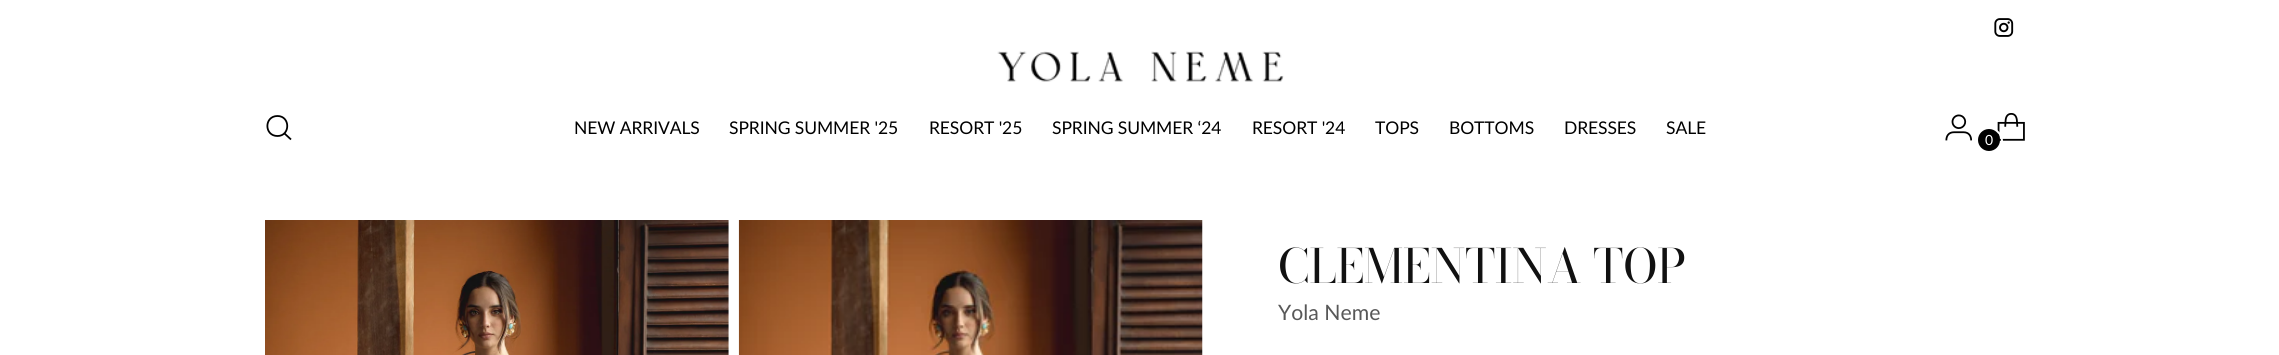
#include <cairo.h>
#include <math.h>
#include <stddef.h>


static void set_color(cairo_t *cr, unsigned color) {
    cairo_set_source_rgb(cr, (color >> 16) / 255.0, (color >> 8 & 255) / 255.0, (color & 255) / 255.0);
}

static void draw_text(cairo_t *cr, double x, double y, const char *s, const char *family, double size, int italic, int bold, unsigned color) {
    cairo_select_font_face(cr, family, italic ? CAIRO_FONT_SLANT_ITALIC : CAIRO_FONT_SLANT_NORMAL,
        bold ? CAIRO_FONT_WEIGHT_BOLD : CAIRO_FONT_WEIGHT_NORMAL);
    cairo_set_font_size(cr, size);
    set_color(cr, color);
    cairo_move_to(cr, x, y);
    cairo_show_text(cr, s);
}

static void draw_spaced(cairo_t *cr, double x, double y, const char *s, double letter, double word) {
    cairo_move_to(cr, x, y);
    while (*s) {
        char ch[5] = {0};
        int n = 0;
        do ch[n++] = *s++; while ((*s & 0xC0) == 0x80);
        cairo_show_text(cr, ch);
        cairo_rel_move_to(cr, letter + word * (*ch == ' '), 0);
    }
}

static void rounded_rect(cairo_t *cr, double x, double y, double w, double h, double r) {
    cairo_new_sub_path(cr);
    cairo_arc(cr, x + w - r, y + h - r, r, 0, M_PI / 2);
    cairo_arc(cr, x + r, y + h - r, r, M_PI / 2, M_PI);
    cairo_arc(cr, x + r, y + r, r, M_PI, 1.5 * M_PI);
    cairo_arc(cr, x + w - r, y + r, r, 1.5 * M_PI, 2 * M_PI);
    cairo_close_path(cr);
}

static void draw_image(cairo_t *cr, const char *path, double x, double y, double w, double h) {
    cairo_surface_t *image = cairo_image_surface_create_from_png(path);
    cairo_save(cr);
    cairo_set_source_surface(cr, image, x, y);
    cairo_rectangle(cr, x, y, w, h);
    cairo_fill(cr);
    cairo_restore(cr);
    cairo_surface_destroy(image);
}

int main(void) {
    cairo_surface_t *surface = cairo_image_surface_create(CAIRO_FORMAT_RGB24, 2279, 355);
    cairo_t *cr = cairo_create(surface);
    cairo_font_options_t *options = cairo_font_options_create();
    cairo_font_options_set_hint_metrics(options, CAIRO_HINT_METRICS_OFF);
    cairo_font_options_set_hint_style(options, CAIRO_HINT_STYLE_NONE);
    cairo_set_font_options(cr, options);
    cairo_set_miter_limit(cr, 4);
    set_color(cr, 0xFFFFFF);
    cairo_paint(cr);
    draw_image(cr, "assets/img1.png", 1994, 18, 20, 19);
    draw_image(cr, "assets/img2.png", 997, 51, 287, 31);
    cairo_new_path(cr);
    cairo_move_to(cr, 277.5, 136);
    cairo_curve_to(cr, 290.5, 136, 290.5, 116, 277.5, 116);
    cairo_curve_to(cr, 264, 116, 264, 136, 277.5, 136);
    cairo_close_path(cr);
    set_color(cr, 0x000000);
    cairo_set_line_width(cr, 1.8);
    cairo_set_line_cap(cr, CAIRO_LINE_CAP_ROUND);
    cairo_stroke(cr);
    cairo_new_path(cr);
    cairo_move_to(cr, 284.5, 133.5);
    cairo_line_to(cr, 291, 139.5);
    cairo_set_line_cap(cr, CAIRO_LINE_CAP_BUTT);
    cairo_stroke(cr);
    cairo_select_font_face(cr, "Lato", CAIRO_FONT_SLANT_NORMAL, CAIRO_FONT_WEIGHT_NORMAL);
    cairo_set_font_size(cr, 17.5);
    draw_spaced(cr, 574, 134, "NEW ARRIVALS", -0.1, 0);
    draw_spaced(cr, 729, 134, "SPRING SUMMER '25", -0.1, 0);
    draw_spaced(cr, 929, 134, "RESORT '25", -0.1, 0);
    draw_spaced(cr, 1052, 134, "SPRING SUMMER ‘24", -0.1, 0);
    draw_spaced(cr, 1252, 134, "RESORT '24", -0.1, 0);
    draw_spaced(cr, 1375, 134, "TOPS", -0.1, 0);
    draw_spaced(cr, 1449, 134, "BOTTOMS", -0.1, 0);
    draw_spaced(cr, 1564, 134, "DRESSES", -0.1, 0);
    draw_spaced(cr, 1666, 134, "SALE", -0.1, 0);
    draw_image(cr, "assets/img3.png", 1945, 114, 27, 27);
    draw_image(cr, "assets/img4.png", 1997, 113, 28, 28);
    rounded_rect(cr, 1977, 129, 25, 24, 12);
    set_color(cr, 0xFFFFFF);
    cairo_set_line_width(cr, 2);
    cairo_stroke(cr);
    set_color(cr, 0x000000);
    cairo_arc(cr, 1989, 140, 11, 0, 2 * M_PI);
    cairo_fill(cr);
    draw_text(cr, 1985, 145, "0", "Lato", 14, 0, 0, 0xFFFFFF);
    draw_image(cr, "assets/img5.png", 265, 220, 464, 135);
    draw_image(cr, "assets/img6.png", 738, 220, 465, 135);
    draw_text(cr, 1278, 283, "CLEMENTINA TOP", "Bodoni Moda", 46.9, 0, 0, 0x111111);
    draw_text(cr, 1278, 320, "Yola Neme", "Lato", 21.25, 0, 0, 0x585858);
    cairo_surface_write_to_png(surface, "output.png");
    cairo_font_options_destroy(options);
    cairo_destroy(cr);
    cairo_surface_destroy(surface);
    return 0;
}
